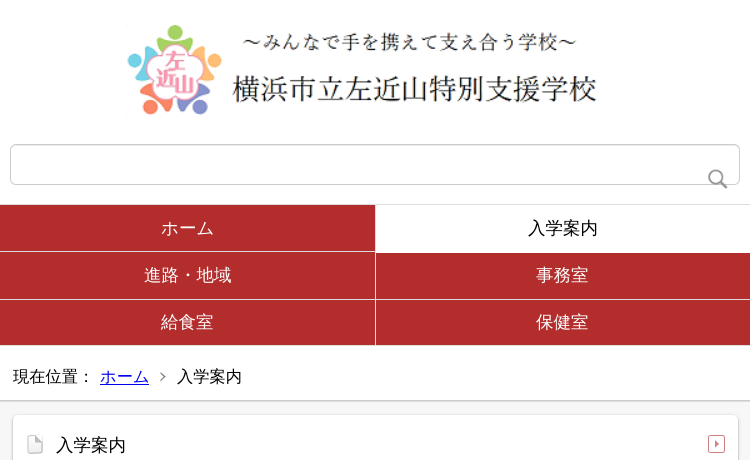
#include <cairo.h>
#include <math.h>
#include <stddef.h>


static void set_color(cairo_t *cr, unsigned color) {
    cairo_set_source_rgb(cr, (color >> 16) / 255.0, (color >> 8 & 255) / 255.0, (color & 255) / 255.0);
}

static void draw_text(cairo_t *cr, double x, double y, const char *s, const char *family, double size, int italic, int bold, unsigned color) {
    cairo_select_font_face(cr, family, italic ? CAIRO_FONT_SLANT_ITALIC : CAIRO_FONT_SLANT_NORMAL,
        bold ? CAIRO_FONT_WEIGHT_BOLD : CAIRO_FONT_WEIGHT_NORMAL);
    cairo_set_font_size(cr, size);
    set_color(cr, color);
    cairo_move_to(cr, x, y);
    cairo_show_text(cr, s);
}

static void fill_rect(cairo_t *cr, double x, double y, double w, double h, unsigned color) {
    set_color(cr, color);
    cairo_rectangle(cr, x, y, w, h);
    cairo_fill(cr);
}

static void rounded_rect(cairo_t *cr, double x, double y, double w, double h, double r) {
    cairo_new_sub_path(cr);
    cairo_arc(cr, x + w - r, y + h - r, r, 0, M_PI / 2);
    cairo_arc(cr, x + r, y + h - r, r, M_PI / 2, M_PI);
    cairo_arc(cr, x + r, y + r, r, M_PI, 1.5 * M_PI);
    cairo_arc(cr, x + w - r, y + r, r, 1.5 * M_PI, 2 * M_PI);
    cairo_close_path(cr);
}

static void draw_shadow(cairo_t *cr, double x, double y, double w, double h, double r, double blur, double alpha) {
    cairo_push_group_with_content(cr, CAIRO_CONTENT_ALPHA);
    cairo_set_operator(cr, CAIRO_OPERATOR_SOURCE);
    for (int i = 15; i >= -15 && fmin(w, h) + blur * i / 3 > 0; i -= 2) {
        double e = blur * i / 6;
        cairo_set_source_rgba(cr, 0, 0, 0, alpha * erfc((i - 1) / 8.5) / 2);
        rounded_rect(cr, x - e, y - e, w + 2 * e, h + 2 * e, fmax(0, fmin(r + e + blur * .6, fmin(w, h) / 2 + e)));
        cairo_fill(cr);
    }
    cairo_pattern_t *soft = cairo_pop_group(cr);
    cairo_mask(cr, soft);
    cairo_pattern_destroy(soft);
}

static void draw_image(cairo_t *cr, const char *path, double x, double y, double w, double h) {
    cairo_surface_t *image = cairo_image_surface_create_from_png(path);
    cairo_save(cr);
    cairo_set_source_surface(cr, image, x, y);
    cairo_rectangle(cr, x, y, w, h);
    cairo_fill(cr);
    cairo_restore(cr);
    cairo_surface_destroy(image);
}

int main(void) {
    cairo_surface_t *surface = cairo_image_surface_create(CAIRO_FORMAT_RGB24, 750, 460);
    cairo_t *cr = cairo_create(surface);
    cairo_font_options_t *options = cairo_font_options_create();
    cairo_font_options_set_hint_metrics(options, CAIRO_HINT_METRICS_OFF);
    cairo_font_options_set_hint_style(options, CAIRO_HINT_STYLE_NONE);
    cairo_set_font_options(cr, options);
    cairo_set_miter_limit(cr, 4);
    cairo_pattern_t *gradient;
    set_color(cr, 0xFFFFFF);
    cairo_paint(cr);
    draw_image(cr, "assets/img1.png", 126, 24, 471, 92);
    set_color(cr, 0xECECEC);
    cairo_new_path(cr);
    cairo_move_to(cr, 16, 146);
    cairo_line_to(cr, 734, 146);
    cairo_curve_to(cr, 737, 146, 739, 148, 739, 151);
    cairo_curve_to(cr, 739, 148, 737, 145, 734, 145);
    cairo_line_to(cr, 16, 145);
    cairo_curve_to(cr, 13, 145, 11, 148, 11, 151);
    cairo_curve_to(cr, 11, 148, 13, 146, 16, 146);
    cairo_close_path(cr);
    cairo_fill(cr);
    rounded_rect(cr, 10.5, 144.5, 729, 40, 5.5);
    set_color(cr, 0xCCCCCC);
    cairo_set_line_width(cr, 1);
    cairo_stroke(cr);
    draw_image(cr, "assets/img2.png", 708, 169, 20, 20);
    fill_rect(cr, 0, 204, 750, 1, 0xDDDDDD);
    fill_rect(cr, 0, 205, 375, 94, 0xB32D2D);
    fill_rect(cr, 0, 251, 375, 1, 0xDDDDDD);
    draw_text(cr, 161, 234, "ホーム", "WenQuanYi Zen Hei Medium", 17.5, 0, 0, 0xFFFFFF);
    fill_rect(cr, 0, 299, 750, 1, 0xDDDDDD);
    fill_rect(cr, 0, 345, 750, 1, 0xDDDDDD);
    fill_rect(cr, 375, 205, 1, 141, 0xDDDDDD);
    draw_text(cr, 528, 234, "入学案内", "WenQuanYi Zen Hei Medium", 17.5, 0, 0, 0x000000);
    draw_text(cr, 144, 281, "進路・地域", "WenQuanYi Zen Hei Medium", 17.5, 0, 0, 0xFFFFFF);
    fill_rect(cr, 376, 253, 374, 46, 0xB32D2D);
    draw_text(cr, 536, 281, "事務室", "WenQuanYi Zen Hei Medium", 17.5, 0, 0, 0xFFFFFF);
    fill_rect(cr, 0, 300, 375, 45, 0xB32D2D);
    draw_text(cr, 161, 328, "給食室", "WenQuanYi Zen Hei Medium", 17.5, 0, 0, 0xFFFFFF);
    fill_rect(cr, 376, 300, 374, 45, 0xB32D2D);
    draw_text(cr, 536, 328, "保健室", "WenQuanYi Zen Hei Medium", 17.5, 0, 0, 0xFFFFFF);
    fill_rect(cr, 0, 400, 750, 1, 0xCCCCCC);
    draw_text(cr, 13, 382, "現在位置：", "WenQuanYi Zen Hei Medium", 16.25, 0, 0, 0x000000);
    draw_text(cr, 100, 382, "ホーム", "WenQuanYi Zen Hei Medium", 16.25, 0, 0, 0x0000EE);
    fill_rect(cr, 100, 384, 49, 1, 0x0000EE);
    set_color(cr, 0x777777);
    cairo_new_path(cr);
    cairo_move_to(cr, 161, 372.5);
    cairo_line_to(cr, 165.5, 376.5);
    cairo_line_to(cr, 164.5, 377.5);
    cairo_line_to(cr, 160, 373);
    cairo_close_path(cr);
    cairo_fill(cr);
    cairo_new_path(cr);
    cairo_move_to(cr, 164.5, 376);
    cairo_line_to(cr, 165.5, 376.5);
    cairo_line_to(cr, 161, 381);
    cairo_line_to(cr, 160, 380.5);
    cairo_close_path(cr);
    cairo_fill(cr);
    draw_text(cr, 177, 382, "入学案内", "WenQuanYi Zen Hei Medium", 16.25, 0, 0, 0x000000);
    fill_rect(cr, 0, 402, 750, 58, 0xF7F7F7);
    fill_rect(cr, 0, 401, 750, 1, 0xDDDDDD);
    set_color(cr, 0x444444);
    draw_shadow(cr, 13, 416, 725, 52, 5, 1, 0.35);
    draw_shadow(cr, 13, 416, 725, 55, 5, 2, 0.2);
    set_color(cr, 0xFFFFFF);
    rounded_rect(cr, 13, 415, 725, 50, 5);
    cairo_fill(cr);
    cairo_save(cr);
    rounded_rect(cr, 28, 435, 15, 19, 2.5);
    cairo_clip(cr);
    gradient = cairo_pattern_create_linear(35, 436, 35, 453);
    cairo_pattern_add_color_stop_rgba(gradient, 0, 1, 1, 1, 1);
    cairo_pattern_add_color_stop_rgba(gradient, 1, 0.933, 0.933, 0.933, 1);
    cairo_set_source(cr, gradient);
    cairo_pattern_destroy(gradient);
    cairo_rectangle(cr, 28, 436, 15, 17);
    cairo_fill(cr);
    cairo_restore(cr);
    cairo_new_path(cr);
    cairo_move_to(cr, 41.5, 436);
    cairo_curve_to(cr, 42.5, 437.5, 42, 443, 42, 444.5);
    cairo_curve_to(cr, 42, 453.5, 43.5, 453, 35, 453);
    cairo_curve_to(cr, 33.5, 453, 30, 454, 28.5, 452.5);
    set_color(cr, 0xBBBBBB);
    cairo_set_line_width(cr, 1.2);
    cairo_stroke(cr);
    cairo_new_path(cr);
    cairo_move_to(cr, 28.5, 452.5);
    cairo_curve_to(cr, 27.5, 451.5, 28, 446, 28, 444.5);
    cairo_curve_to(cr, 28, 435, 26.5, 435.5, 35, 435.5);
    cairo_curve_to(cr, 36.5, 435.5, 40, 435, 41.5, 436);
    set_color(cr, 0xCCCCCC);
    cairo_stroke(cr);
    set_color(cr, 0xFFFFFF);
    cairo_new_path(cr);
    cairo_move_to(cr, 35, 435);
    cairo_line_to(cr, 42.5, 435);
    cairo_line_to(cr, 39, 439);
    cairo_close_path(cr);
    cairo_fill(cr);
    cairo_new_path(cr);
    cairo_move_to(cr, 42.5, 435);
    cairo_line_to(cr, 42.5, 442.5);
    cairo_line_to(cr, 39, 439);
    cairo_close_path(cr);
    cairo_fill(cr);
    set_color(cr, 0xBBBBBB);
    cairo_new_path(cr);
    cairo_move_to(cr, 42.5, 442.5);
    cairo_line_to(cr, 35, 442.5);
    cairo_line_to(cr, 39, 439);
    cairo_close_path(cr);
    cairo_fill(cr);
    cairo_new_path(cr);
    cairo_move_to(cr, 35, 442.5);
    cairo_line_to(cr, 35, 435);
    cairo_line_to(cr, 39, 439);
    cairo_close_path(cr);
    cairo_fill(cr);
    draw_text(cr, 56, 451, "入学案内", "WenQuanYi Zen Hei Medium", 17.5, 0, 0, 0x000000);
    rounded_rect(cr, 708.5, 435.5, 16, 17, 2);
    set_color(cr, 0xD18181);
    cairo_set_line_width(cr, 1);
    cairo_stroke(cr);
    cairo_new_path(cr);
    cairo_move_to(cr, 715, 447.5);
    cairo_line_to(cr, 715, 440);
    cairo_line_to(cr, 719, 444);
    cairo_close_path(cr);
    cairo_fill(cr);
    cairo_surface_write_to_png(surface, "output.png");
    cairo_font_options_destroy(options);
    cairo_destroy(cr);
    cairo_surface_destroy(surface);
    return 0;
}
